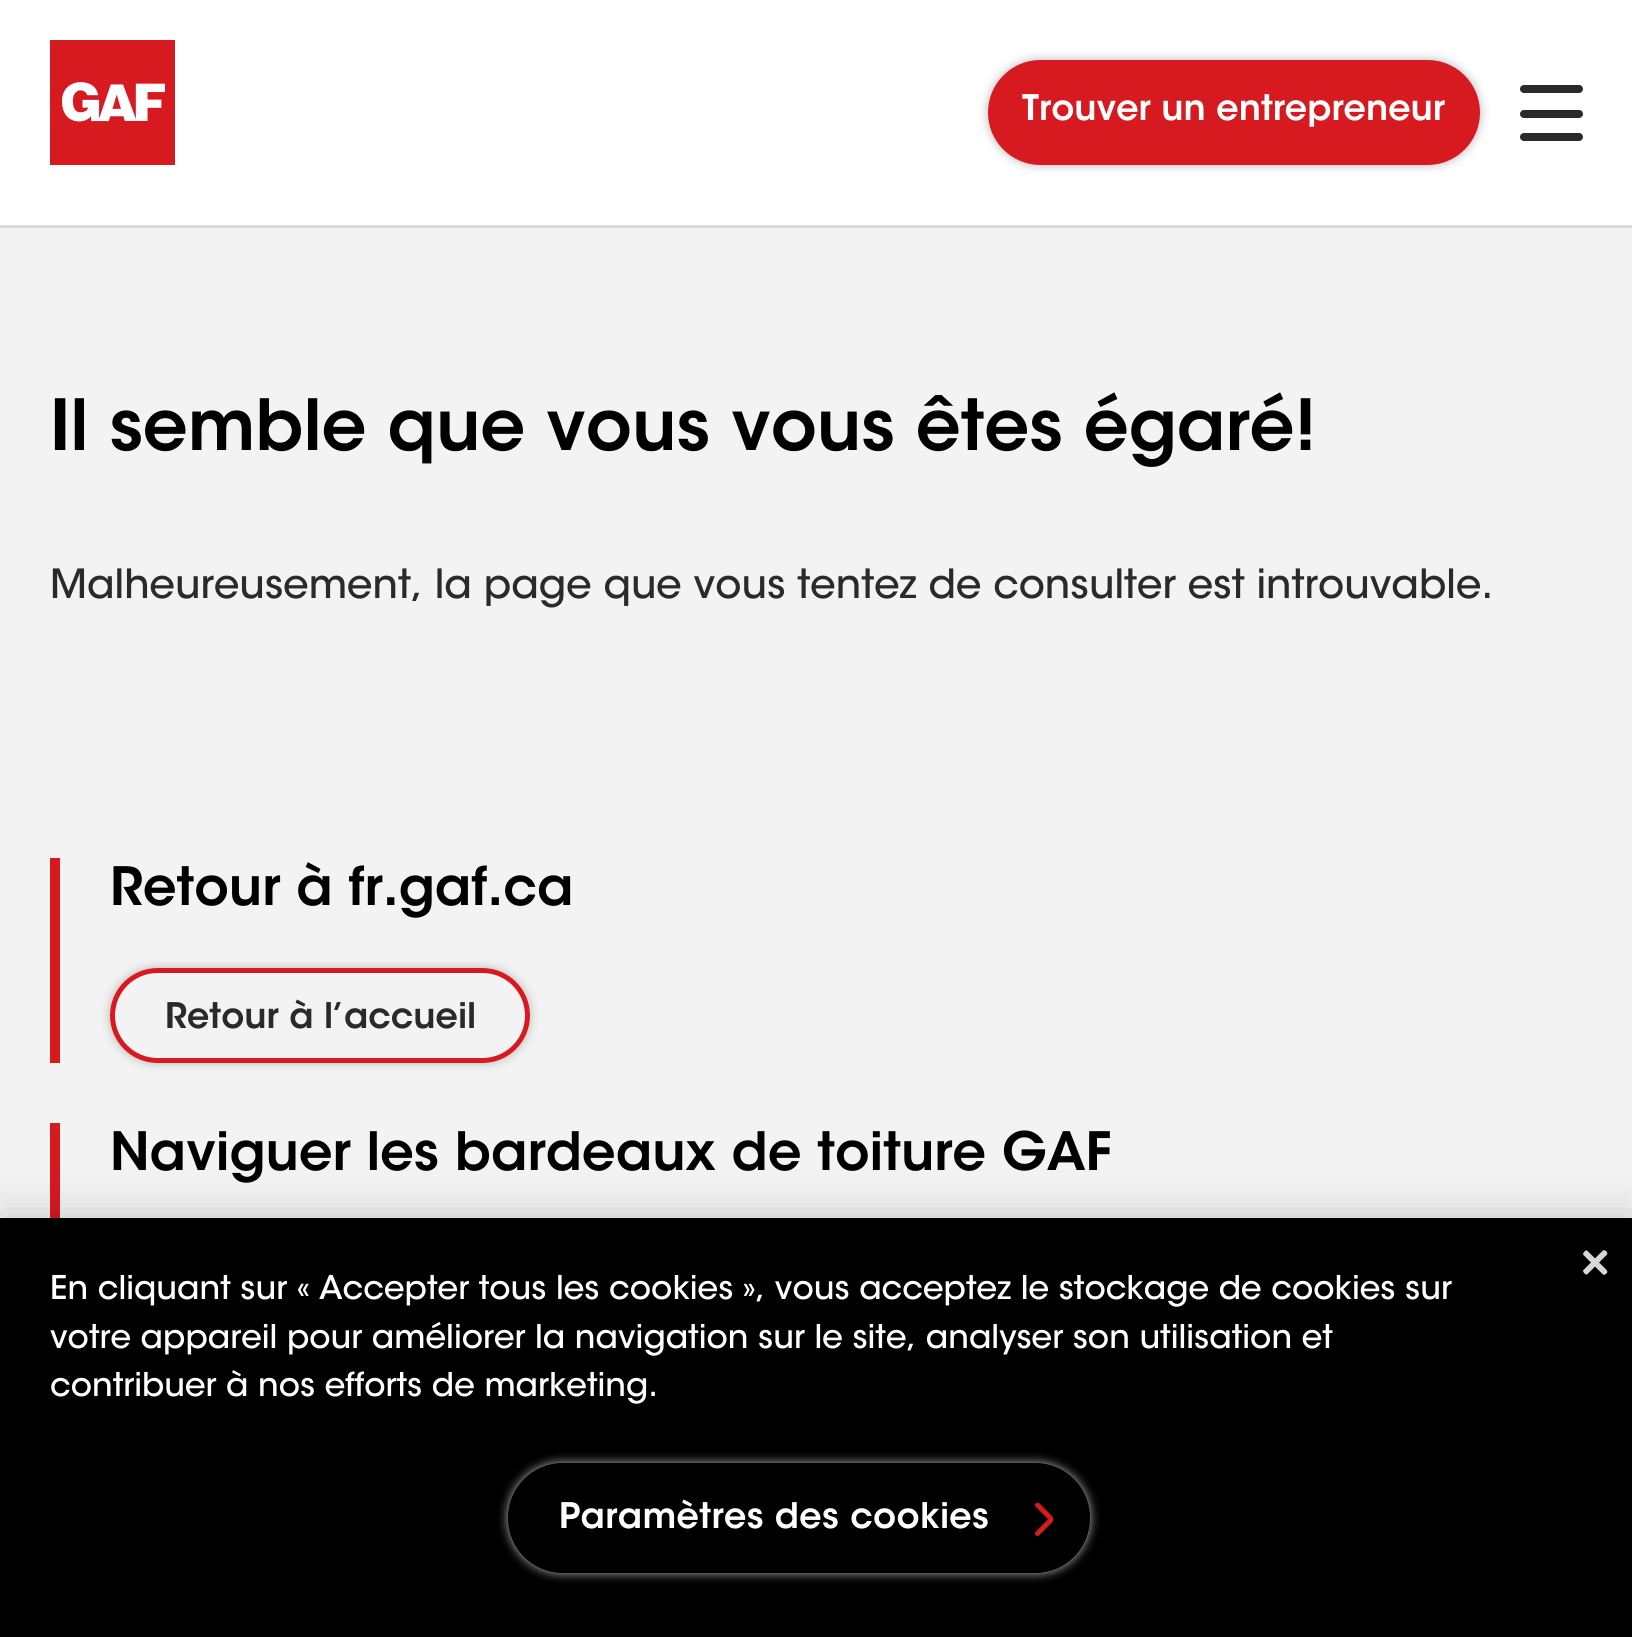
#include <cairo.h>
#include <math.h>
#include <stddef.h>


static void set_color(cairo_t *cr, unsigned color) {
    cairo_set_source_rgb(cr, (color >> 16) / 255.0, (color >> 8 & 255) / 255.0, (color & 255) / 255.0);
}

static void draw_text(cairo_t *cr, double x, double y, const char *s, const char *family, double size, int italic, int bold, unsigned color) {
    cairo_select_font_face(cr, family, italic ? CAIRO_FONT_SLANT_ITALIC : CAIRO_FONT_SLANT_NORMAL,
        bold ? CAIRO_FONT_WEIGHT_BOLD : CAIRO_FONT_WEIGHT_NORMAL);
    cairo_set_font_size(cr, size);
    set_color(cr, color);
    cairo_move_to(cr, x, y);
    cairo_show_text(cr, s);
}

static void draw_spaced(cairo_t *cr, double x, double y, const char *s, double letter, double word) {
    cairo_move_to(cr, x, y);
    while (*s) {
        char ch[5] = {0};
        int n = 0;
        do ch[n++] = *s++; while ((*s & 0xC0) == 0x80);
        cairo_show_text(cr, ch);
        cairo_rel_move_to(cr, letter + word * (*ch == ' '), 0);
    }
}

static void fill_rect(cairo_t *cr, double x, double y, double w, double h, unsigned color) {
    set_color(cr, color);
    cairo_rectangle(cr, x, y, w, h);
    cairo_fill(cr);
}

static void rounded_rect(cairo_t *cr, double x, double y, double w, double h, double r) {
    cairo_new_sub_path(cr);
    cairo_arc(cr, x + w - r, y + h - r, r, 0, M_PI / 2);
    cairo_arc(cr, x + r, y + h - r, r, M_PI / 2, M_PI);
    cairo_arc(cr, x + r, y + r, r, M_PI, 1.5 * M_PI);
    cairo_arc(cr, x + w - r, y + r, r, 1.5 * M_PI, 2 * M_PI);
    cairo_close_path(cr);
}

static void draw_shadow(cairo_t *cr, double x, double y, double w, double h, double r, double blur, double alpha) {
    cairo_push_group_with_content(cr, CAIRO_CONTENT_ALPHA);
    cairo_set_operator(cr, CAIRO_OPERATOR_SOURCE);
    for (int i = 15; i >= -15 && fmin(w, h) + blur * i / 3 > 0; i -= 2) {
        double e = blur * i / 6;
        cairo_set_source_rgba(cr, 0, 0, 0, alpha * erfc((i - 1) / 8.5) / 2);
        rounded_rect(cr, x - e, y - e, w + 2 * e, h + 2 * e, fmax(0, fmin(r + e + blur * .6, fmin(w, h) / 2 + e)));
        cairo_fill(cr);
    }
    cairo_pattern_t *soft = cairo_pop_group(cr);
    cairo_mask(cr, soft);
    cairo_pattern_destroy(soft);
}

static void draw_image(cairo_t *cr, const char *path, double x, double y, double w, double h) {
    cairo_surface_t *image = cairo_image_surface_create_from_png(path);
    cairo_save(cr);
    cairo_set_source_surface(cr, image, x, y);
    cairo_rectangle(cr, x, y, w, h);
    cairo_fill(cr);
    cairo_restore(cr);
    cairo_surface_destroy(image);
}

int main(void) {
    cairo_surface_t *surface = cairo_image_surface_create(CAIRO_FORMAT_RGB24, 1632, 1637);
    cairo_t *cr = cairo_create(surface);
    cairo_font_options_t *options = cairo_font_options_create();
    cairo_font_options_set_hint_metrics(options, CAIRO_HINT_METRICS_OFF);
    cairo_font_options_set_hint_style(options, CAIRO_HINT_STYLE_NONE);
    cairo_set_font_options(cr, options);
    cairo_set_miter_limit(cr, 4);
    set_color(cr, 0xF3F3F3);
    cairo_paint(cr);
    fill_rect(cr, 0, 0, 1632, 225, 0xFFFFFF);
    fill_rect(cr, 0, 225, 1632, 3, 0xDCDCDC);
    draw_image(cr, "assets/img1.png", 50, 40, 125, 125);
    set_color(cr, 0xB7B7B7);
    draw_shadow(cr, 988, 60, 492, 105, 52.5, 5, 1);
    set_color(cr, 0xD71920);
    rounded_rect(cr, 990.5, 62.5, 487, 100, 50);
    cairo_fill_preserve(cr);
    cairo_set_line_width(cr, 5);
    cairo_stroke(cr);
    draw_text(cr, 1022, 120, "Trouver un entrepreneur", "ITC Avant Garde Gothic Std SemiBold", 35, 0, 0, 0xFFFFFF);
    set_color(cr, 0x2A2A2A);
    rounded_rect(cr, 1520, 85, 63, 8, 4);
    cairo_fill(cr);
    rounded_rect(cr, 1520, 110, 63, 8, 4);
    cairo_fill(cr);
    rounded_rect(cr, 1520, 133, 63, 8, 4);
    cairo_fill(cr);
    draw_text(cr, 50, 450, "Il semble que vous vous êtes égaré!", "ITC Avant Garde Gothic Std SemiBold", 70, 0, 0, 0x000000);
    draw_text(cr, 50, 598, "Malheureusement, la page que vous tentez de consulter est introuvable.", "ITC Avant Garde Gothic Std Medium", 40, 0, 0, 0x2A2A2A);
    fill_rect(cr, 50, 858, 10, 205, 0xD71920);
    draw_text(cr, 110, 905, "Retour à fr.gaf.ca", "ITC Avant Garde Gothic Std SemiBold", 52.5, 0, 0, 0x000000);
    cairo_save(cr);
    cairo_set_fill_rule(cr, CAIRO_FILL_RULE_EVEN_ODD);
    cairo_new_path(cr);
    cairo_move_to(cr, 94, 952);
    cairo_line_to(cr, 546, 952);
    cairo_line_to(cr, 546, 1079);
    cairo_line_to(cr, 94, 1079);
    cairo_close_path(cr);
    cairo_move_to(cr, 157.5, 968);
    cairo_line_to(cr, 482.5, 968);
    cairo_curve_to(cr, 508.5, 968, 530, 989.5, 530, 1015.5);
    cairo_curve_to(cr, 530, 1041.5, 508.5, 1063, 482.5, 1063);
    cairo_line_to(cr, 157.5, 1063);
    cairo_curve_to(cr, 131.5, 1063, 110, 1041.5, 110, 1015.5);
    cairo_curve_to(cr, 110, 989.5, 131.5, 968, 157.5, 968);
    cairo_close_path(cr);
    cairo_clip(cr);
    set_color(cr, 0xB7B7B7);
    draw_shadow(cr, 110, 968, 420, 95, 47.5, 5, 1);
    cairo_restore(cr);
    rounded_rect(cr, 112.5, 970.5, 415, 90, 45);
    set_color(cr, 0xD71920);
    cairo_stroke(cr);
    draw_text(cr, 165, 1028, "Retour à l’accueil", "ITC Avant Garde Gothic Std SemiBold", 35, 0, 0, 0x2A2A2A);
    fill_rect(cr, 50, 1123, 10, 95, 0xD71920);
    draw_text(cr, 110, 1170, "Naviguer les bardeaux de toiture GAF", "ITC Avant Garde Gothic Std SemiBold", 52.5, 0, 0, 0x000000);
    set_color(cr, 0x000000);
    draw_shadow(cr, 0, 1218, 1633, 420, 0, 22.5, 0.2);
    fill_rect(cr, 0, 1218, 1632, 419, 0x000000);
    draw_image(cr, "assets/img2.png", 1583, 1250, 25, 25);
    draw_text(cr, 50, 1299, "En cliquant sur « Accepter tous les cookies », vous acceptez le stockage de cookies sur", "ITC Avant Garde Gothic Std Medium", 32.5, 0, 0, 0xFFFFFF);
    draw_text(cr, 50, 1348, "votre appareil pour améliorer la navigation sur le site, analyser son utilisation et", "ITC Avant Garde Gothic Std Medium", 32.5, 0, 0, 0xFFFFFF);
    draw_text(cr, 50, 1396, "contribuer à nos efforts de marketing.", "ITC Avant Garde Gothic Std Medium", 32.5, 0, 0, 0xFFFFFF);
    cairo_save(cr);
    cairo_set_fill_rule(cr, CAIRO_FILL_RULE_EVEN_ODD);
    cairo_new_path(cr);
    cairo_move_to(cr, 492, 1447);
    cairo_line_to(cr, 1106, 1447);
    cairo_line_to(cr, 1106, 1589);
    cairo_line_to(cr, 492, 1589);
    cairo_close_path(cr);
    cairo_move_to(cr, 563, 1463);
    cairo_line_to(cr, 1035, 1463);
    cairo_curve_to(cr, 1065.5, 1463, 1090, 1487.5, 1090, 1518);
    cairo_curve_to(cr, 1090, 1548.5, 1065.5, 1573, 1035, 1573);
    cairo_line_to(cr, 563, 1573);
    cairo_curve_to(cr, 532.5, 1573, 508, 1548.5, 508, 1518);
    cairo_curve_to(cr, 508, 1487.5, 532.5, 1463, 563, 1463);
    cairo_close_path(cr);
    cairo_clip(cr);
    set_color(cr, 0xB7B7B7);
    draw_shadow(cr, 508, 1463, 582, 110, 55, 5, 1);
    cairo_restore(cr);
    cairo_save(cr);
    cairo_rectangle(cr, 1035, 1503, 20, 35);
    cairo_clip(cr);
    cairo_new_path(cr);
    cairo_move_to(cr, 1037.5, 1533.5);
    cairo_line_to(cr, 1050, 1521);
    cairo_curve_to(cr, 1051, 1520, 1051, 1518.5, 1050, 1517.5);
    cairo_line_to(cr, 1037.5, 1505);
    set_color(cr, 0xD71920);
    cairo_set_line_cap(cr, CAIRO_LINE_CAP_ROUND);
    cairo_stroke(cr);
    cairo_restore(cr);
    cairo_select_font_face(cr, "ITC Avant Garde Gothic Std SemiBold", CAIRO_FONT_SLANT_NORMAL, CAIRO_FONT_WEIGHT_NORMAL);
    cairo_set_font_size(cr, 35);
    draw_spaced(cr, 559, 1528, "Paramètres des cookies", 0.35, 0);
    cairo_surface_write_to_png(surface, "output.png");
    cairo_font_options_destroy(options);
    cairo_destroy(cr);
    cairo_surface_destroy(surface);
    return 0;
}
